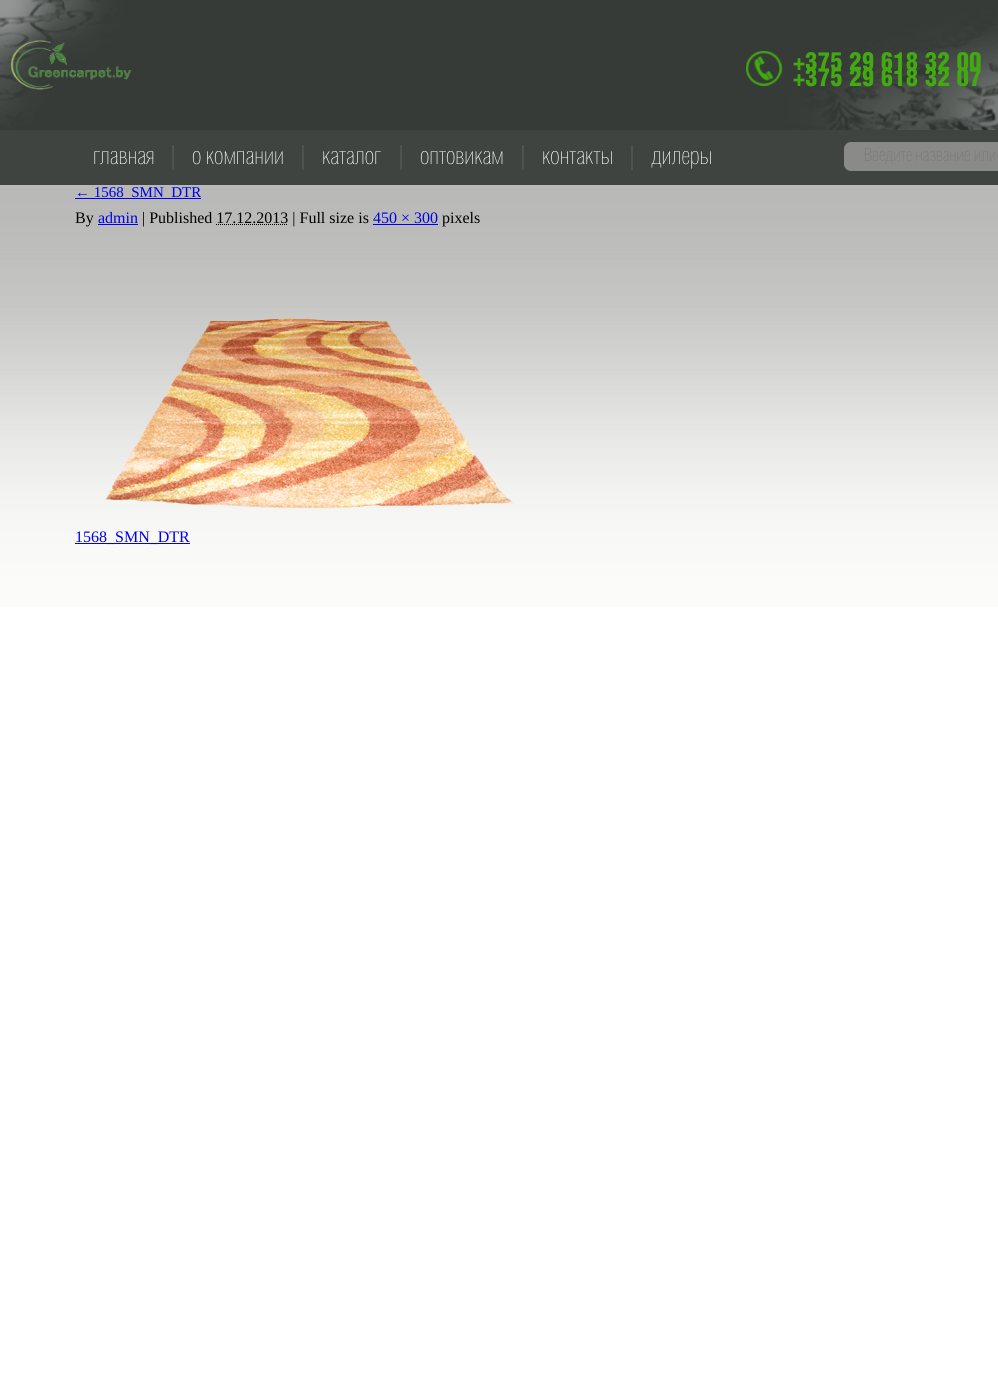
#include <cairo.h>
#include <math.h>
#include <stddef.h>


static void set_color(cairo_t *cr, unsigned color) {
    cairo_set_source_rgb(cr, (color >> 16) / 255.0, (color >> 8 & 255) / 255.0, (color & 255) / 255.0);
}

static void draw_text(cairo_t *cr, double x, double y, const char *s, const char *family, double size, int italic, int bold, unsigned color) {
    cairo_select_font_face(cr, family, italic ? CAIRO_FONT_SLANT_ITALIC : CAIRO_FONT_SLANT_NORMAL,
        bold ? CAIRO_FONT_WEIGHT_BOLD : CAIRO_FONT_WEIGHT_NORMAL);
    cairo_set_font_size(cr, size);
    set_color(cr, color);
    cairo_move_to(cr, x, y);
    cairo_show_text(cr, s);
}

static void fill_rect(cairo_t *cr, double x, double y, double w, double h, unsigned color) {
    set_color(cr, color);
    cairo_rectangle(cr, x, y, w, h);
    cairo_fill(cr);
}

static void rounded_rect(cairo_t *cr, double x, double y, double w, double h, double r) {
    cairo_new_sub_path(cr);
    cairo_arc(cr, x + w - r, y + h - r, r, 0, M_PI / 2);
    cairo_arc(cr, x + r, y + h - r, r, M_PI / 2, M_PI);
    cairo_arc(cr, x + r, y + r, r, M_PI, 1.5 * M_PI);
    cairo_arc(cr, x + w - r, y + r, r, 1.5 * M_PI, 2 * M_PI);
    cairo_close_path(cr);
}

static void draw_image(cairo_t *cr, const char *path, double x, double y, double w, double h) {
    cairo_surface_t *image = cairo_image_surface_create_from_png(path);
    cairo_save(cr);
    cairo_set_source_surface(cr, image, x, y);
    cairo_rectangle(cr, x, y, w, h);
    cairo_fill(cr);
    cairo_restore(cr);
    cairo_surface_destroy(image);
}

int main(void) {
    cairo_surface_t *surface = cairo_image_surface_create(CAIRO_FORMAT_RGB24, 998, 1400);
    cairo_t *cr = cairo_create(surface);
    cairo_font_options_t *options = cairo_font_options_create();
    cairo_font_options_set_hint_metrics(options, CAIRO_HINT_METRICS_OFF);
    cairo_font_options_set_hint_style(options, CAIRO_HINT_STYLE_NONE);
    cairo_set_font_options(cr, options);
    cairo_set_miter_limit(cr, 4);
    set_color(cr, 0xFFFFFF);
    cairo_paint(cr);
    draw_image(cr, "assets/img1.png", 0, 0, 998, 130);
    draw_image(cr, "assets/img2.png", 10, 40, 122, 50);
    draw_image(cr, "assets/img3.png", 746, 51, 37, 36);
    draw_text(cr, 793, 70, "+375 29 618 32 00", "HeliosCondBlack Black", 25, 0, 0, 0x43A911);
    draw_text(cr, 793, 86, "+375 29 618 32 07", "HeliosCondBlack Black", 25, 0, 0, 0x43A911);
    fill_rect(cr, 0, 130, 998, 55, 0x404441);
    fill_rect(cr, 172, 145, 2, 25, 0x4F5250);
    draw_text(cr, 93, 164, "главная", "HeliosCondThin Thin", 24, 0, 0, 0xFCFFFD);
    fill_rect(cr, 302, 145, 2, 25, 0x4F5250);
    draw_text(cr, 192, 164, "о компании", "HeliosCondThin Thin", 24, 0, 0, 0xFCFFFD);
    fill_rect(cr, 400, 145, 2, 25, 0x4F5250);
    draw_text(cr, 322, 164, "каталог", "HeliosCondThin Thin", 24, 0, 0, 0xFCFFFD);
    fill_rect(cr, 522, 145, 2, 25, 0x4F5250);
    draw_text(cr, 420, 164, "оптовикам", "HeliosCondThin Thin", 24, 0, 0, 0xFCFFFD);
    fill_rect(cr, 631, 145, 2, 25, 0x4F5250);
    draw_text(cr, 542, 164, "контакты", "HeliosCondThin Thin", 24, 0, 0, 0xFCFFFD);
    draw_text(cr, 651, 164, "дилеры", "HeliosCondThin Thin", 24, 0, 0, 0xFCFFFD);
    set_color(cr, 0x8A8A89);
    rounded_rect(cr, 844, 142, 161, 29, 7);
    cairo_fill(cr);
    draw_text(cr, 864, 161, "Введите название или", "HeliosCondThin Thin", 18, 0, 0, 0x757575);
    draw_image(cr, "assets/img4.png", 0, 185, 998, 422);
    fill_rect(cr, 75, 198, 126, 1, 0x0000EE);
    draw_text(cr, 75, 197, "← 1568_SMN_DTR", "Liberation Serif", 15, 0, 0, 0x0000EE);
    draw_text(cr, 75, 223, "By", "Liberation Serif", 16, 0, 0, 0x000000);
    draw_text(cr, 98, 223, "admin", "Liberation Serif", 16, 0, 0, 0x0000EE);
    fill_rect(cr, 98, 224, 40, 1, 0x0000EE);
    draw_text(cr, 142, 223, "| Published 17.12.2013 | Full size is", "Liberation Serif", 16, 0, 0, 0x000000);
    draw_text(cr, 373, 223, "450 × 300", "Liberation Serif", 16, 0, 0, 0x0000EE);
    fill_rect(cr, 373, 224, 65, 1, 0x0000EE);
    draw_text(cr, 442, 223, "pixels", "Liberation Serif", 16, 0, 0, 0x000000);
    cairo_new_path(cr);
    cairo_move_to(cr, 216, 224.5);
    cairo_line_to(cr, 288, 224.5);
    cairo_set_line_width(cr, 1);
    cairo_set_dash(cr, (double[]){1, 1}, 2, 0);
    cairo_stroke(cr);
    draw_image(cr, "assets/img5.png", 104, 318, 410, 191);
    fill_rect(cr, 75, 543, 115, 1, 0x0000EE);
    draw_text(cr, 75, 542, "1568_SMN_DTR", "Liberation Serif", 16, 0, 0, 0x0000EE);
    cairo_surface_write_to_png(surface, "output.png");
    cairo_font_options_destroy(options);
    cairo_destroy(cr);
    cairo_surface_destroy(surface);
    return 0;
}
